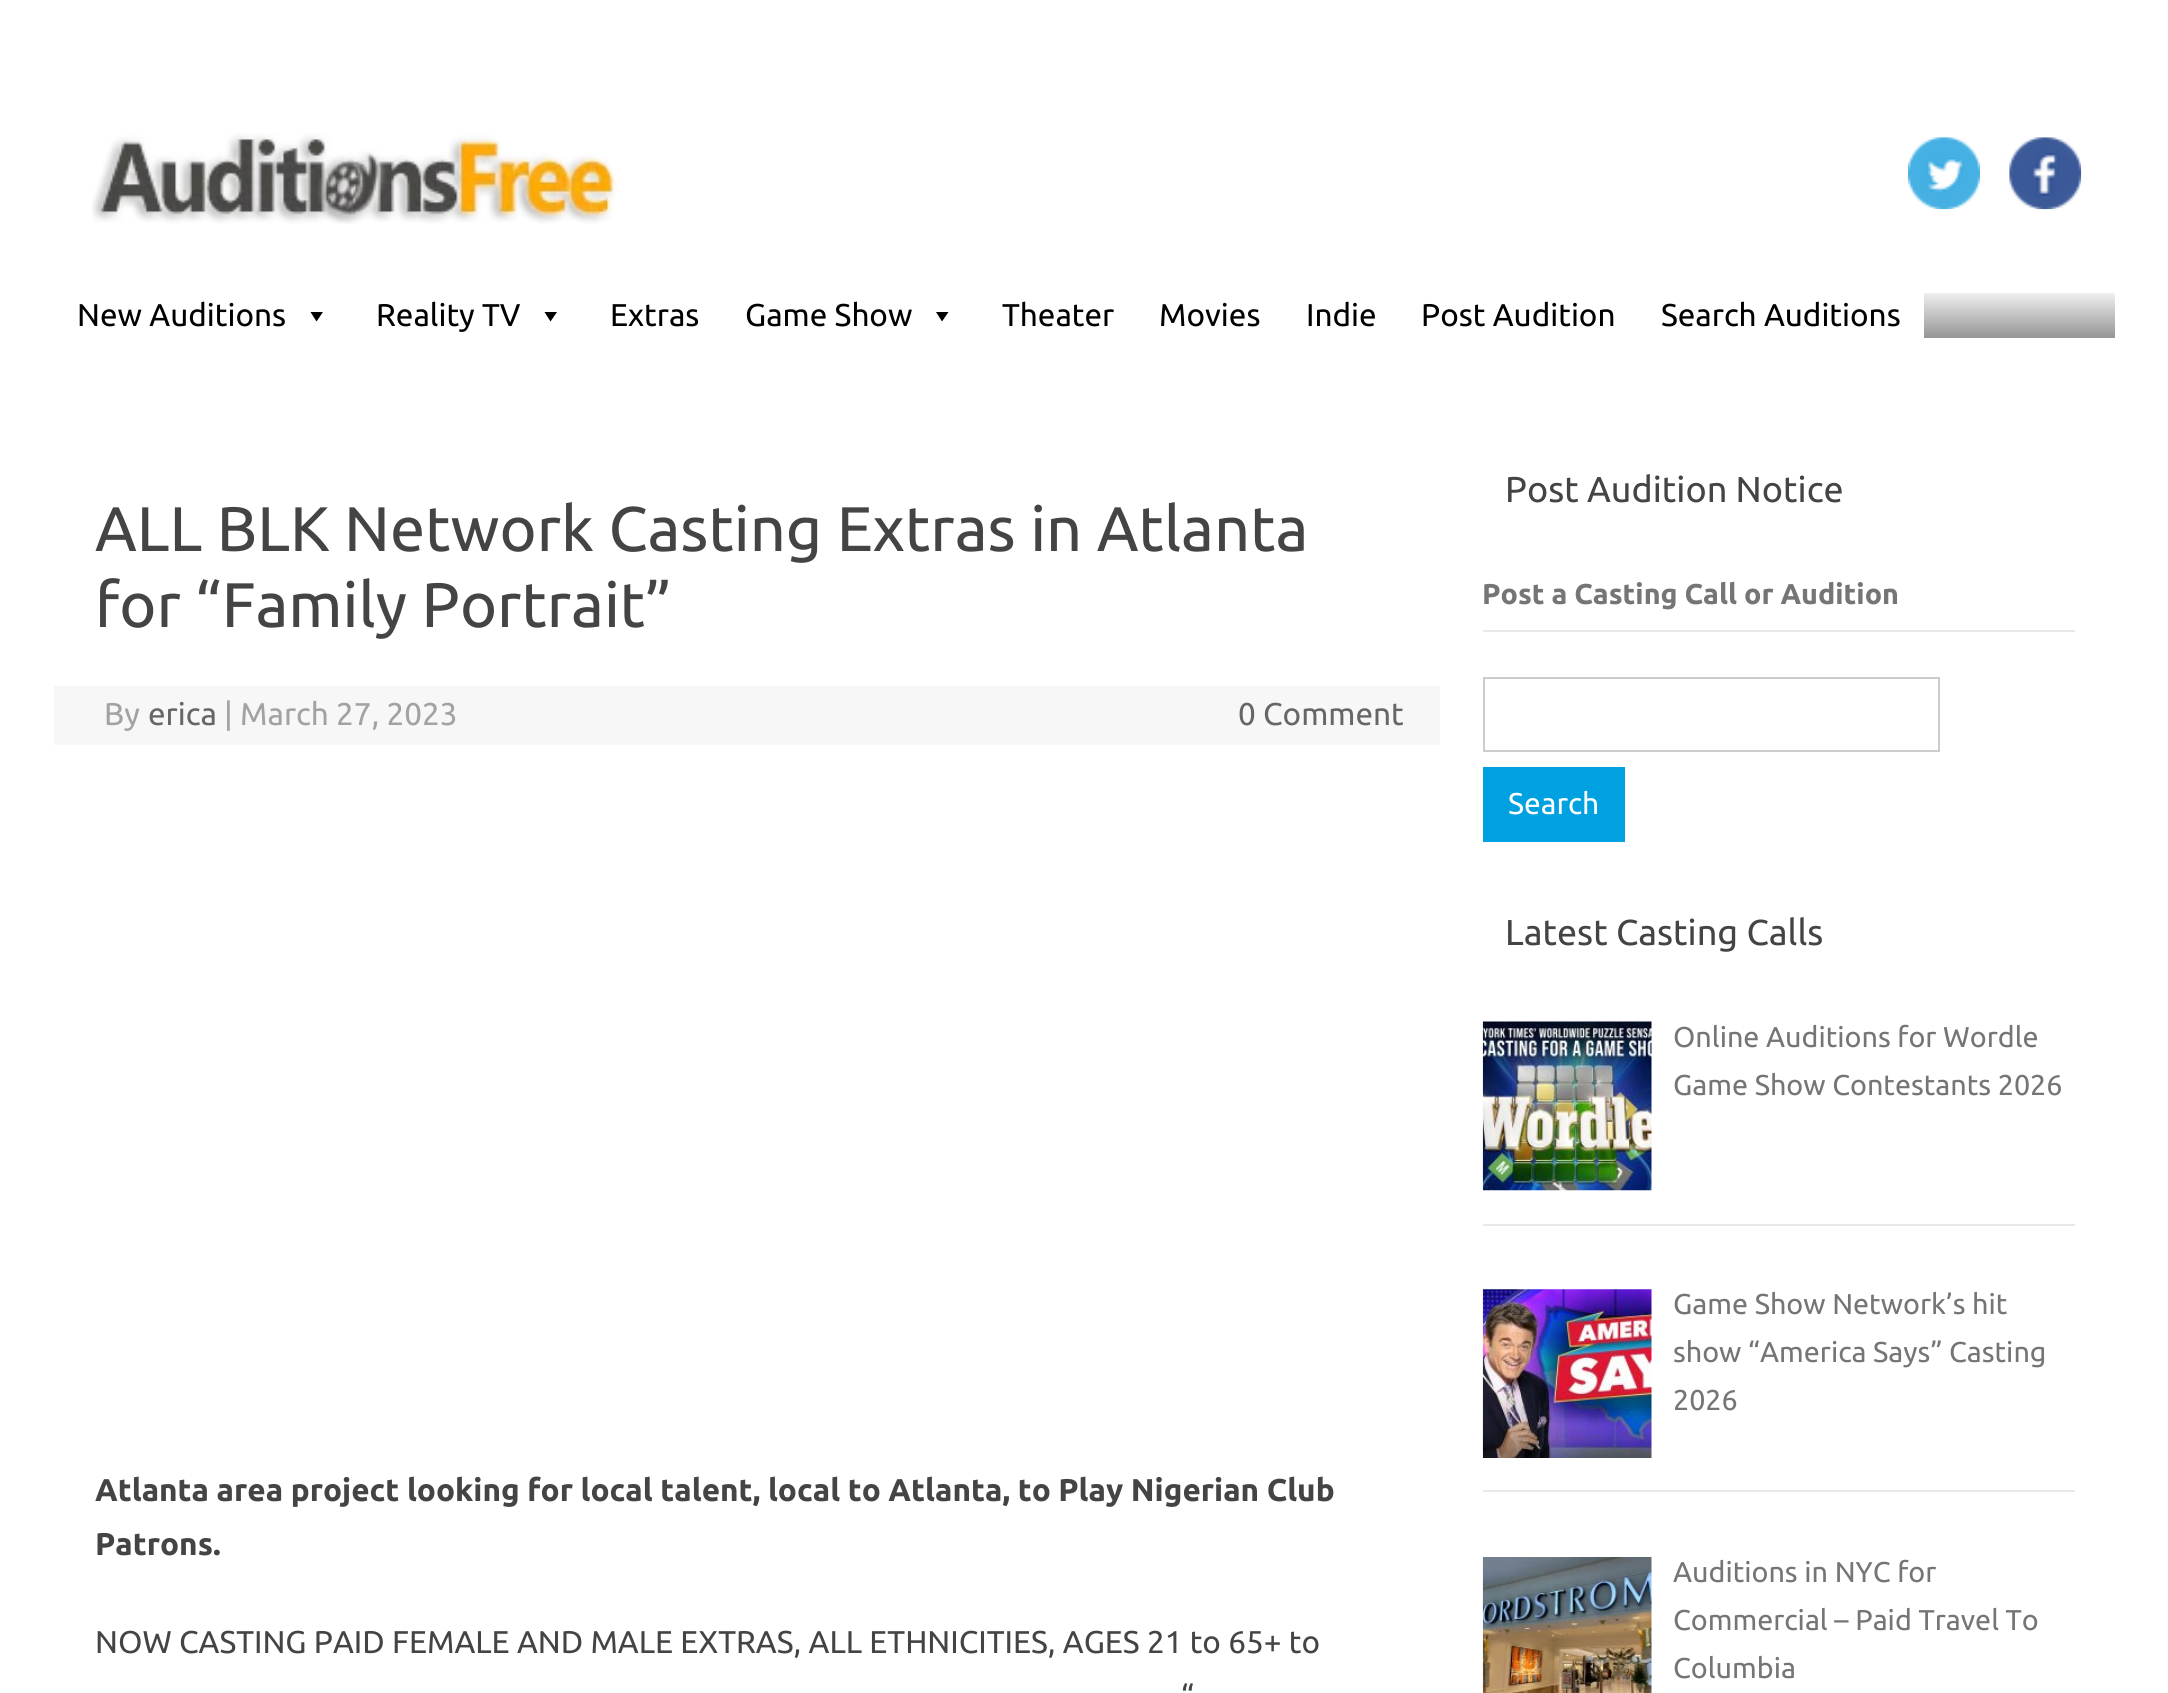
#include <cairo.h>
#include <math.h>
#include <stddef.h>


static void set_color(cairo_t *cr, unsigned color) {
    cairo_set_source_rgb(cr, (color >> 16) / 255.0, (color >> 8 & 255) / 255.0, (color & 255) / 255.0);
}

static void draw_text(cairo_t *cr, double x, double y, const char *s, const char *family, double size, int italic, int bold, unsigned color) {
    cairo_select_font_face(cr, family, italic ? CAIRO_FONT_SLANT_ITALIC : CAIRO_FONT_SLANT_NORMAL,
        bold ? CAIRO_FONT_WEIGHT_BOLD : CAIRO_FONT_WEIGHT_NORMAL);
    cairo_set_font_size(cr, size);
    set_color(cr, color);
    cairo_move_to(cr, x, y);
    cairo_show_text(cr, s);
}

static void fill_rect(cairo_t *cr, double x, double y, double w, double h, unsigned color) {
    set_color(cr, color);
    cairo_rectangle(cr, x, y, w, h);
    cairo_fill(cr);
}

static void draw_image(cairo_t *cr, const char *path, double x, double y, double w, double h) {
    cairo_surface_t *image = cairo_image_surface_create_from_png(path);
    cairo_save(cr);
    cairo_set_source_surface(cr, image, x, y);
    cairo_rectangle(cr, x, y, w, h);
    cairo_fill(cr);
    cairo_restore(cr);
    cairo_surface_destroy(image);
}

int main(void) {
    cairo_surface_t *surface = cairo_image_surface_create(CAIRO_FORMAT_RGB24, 2168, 1693);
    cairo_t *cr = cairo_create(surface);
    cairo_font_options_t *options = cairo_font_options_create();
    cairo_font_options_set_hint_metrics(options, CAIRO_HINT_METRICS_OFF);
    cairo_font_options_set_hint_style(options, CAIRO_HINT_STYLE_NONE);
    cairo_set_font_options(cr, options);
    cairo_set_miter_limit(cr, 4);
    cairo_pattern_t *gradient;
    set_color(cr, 0xFFFFFF);
    cairo_paint(cr);
    draw_image(cr, "assets/img1.png", 92, 133, 525, 91);
    draw_image(cr, "assets/img2.png", 1908, 137, 72, 73);
    draw_image(cr, "assets/img3.png", 2009, 137, 73, 73);
    gradient = cairo_pattern_create_linear(1085, 292, 1085, 338);
    cairo_pattern_add_color_stop_rgba(gradient, 0, 0.945, 0.945, 0.945, 1);
    cairo_pattern_add_color_stop_rgba(gradient, 1, 0.584, 0.584, 0.584, 1);
    cairo_set_source(cr, gradient);
    cairo_pattern_destroy(gradient);
    cairo_rectangle(cr, 1924, 293, 191, 45);
    cairo_fill(cr);
    draw_text(cr, 77, 326, "New Auditions", "Ubuntu", 31.5, 0, 0, 0x000000);
    cairo_new_path(cr);
    cairo_move_to(cr, 323, 312);
    cairo_line_to(cr, 316.5, 321.5);
    cairo_line_to(cr, 310.5, 312);
    cairo_close_path(cr);
    cairo_fill(cr);
    draw_text(cr, 376, 326, "Reality TV", "Ubuntu", 31.5, 0, 0, 0x000000);
    cairo_new_path(cr);
    cairo_move_to(cr, 557, 312);
    cairo_line_to(cr, 550.5, 321.5);
    cairo_line_to(cr, 544.5, 312);
    cairo_close_path(cr);
    cairo_fill(cr);
    draw_text(cr, 610, 326, "Extras", "Ubuntu", 31.5, 0, 0, 0x000000);
    draw_text(cr, 745, 326, "Game Show", "Ubuntu", 31.5, 0, 0, 0x000000);
    cairo_new_path(cr);
    cairo_move_to(cr, 948.5, 312);
    cairo_line_to(cr, 942, 321.5);
    cairo_line_to(cr, 936, 312);
    cairo_close_path(cr);
    cairo_fill(cr);
    draw_text(cr, 1002, 326, "Theater", "Ubuntu", 31.5, 0, 0, 0x000000);
    draw_text(cr, 1159, 326, "Movies", "Ubuntu", 31.5, 0, 0, 0x000000);
    draw_text(cr, 1306, 326, "Indie", "Ubuntu", 31.5, 0, 0, 0x000000);
    draw_text(cr, 1421, 326, "Post Audition", "Ubuntu", 31.5, 0, 0, 0x000000);
    draw_text(cr, 1661, 326, "Search Auditions", "Ubuntu", 31.5, 0, 0, 0x000000);
    draw_text(cr, 95, 551, "ALL BLK Network Casting Extras in Atlanta", "Ubuntu", 63, 0, 0, 0x444444);
    draw_text(cr, 95, 627, "for “Family Portrait”", "Ubuntu", 63, 0, 0, 0x444444);
    fill_rect(cr, 54, 686, 1386, 59, 0xF7F7F7);
    draw_text(cr, 104, 725, "By", "Ubuntu", 31.5, 0, 0, 0xA2A2A2);
    draw_text(cr, 148, 725, "erica", "Ubuntu", 31.5, 0, 0, 0x666666);
    draw_text(cr, 224, 725, "| March 27, 2023", "Ubuntu", 31.5, 0, 0, 0xA2A2A2);
    draw_text(cr, 1238, 725, "0 Comment", "Ubuntu", 31.5, 0, 0, 0x666666);
    draw_text(cr, 95, 1501, "Atlanta area project looking for local talent, local to Atlanta, to Play Nigerian Club", "Ubuntu", 31.5, 0, 1, 0x444444);
    draw_text(cr, 95, 1555, "Patrons.", "Ubuntu", 31.5, 0, 1, 0x444444);
    draw_text(cr, 95, 1653, "NOW CASTING PAID FEMALE AND MALE EXTRAS, ALL ETHNICITIES, AGES 21 to 65+ to", "Ubuntu", 31.5, 0, 0, 0x444444);
    draw_text(cr, 1181, 1707, "“", "Ubuntu", 31.5, 0, 0, 0x444444);
    draw_text(cr, 1505, 502, "Post Audition Notice", "Ubuntu", 36, 0, 0, 0x444444);
    fill_rect(cr, 1483, 630, 592, 2, 0xE9E9E9);
    draw_text(cr, 1482, 604, "Post a Casting Call or Audition", "Ubuntu", 28.7, 0, 1, 0x757575);
    cairo_rectangle(cr, 1484, 678, 455, 73);
    set_color(cr, 0xCCCCCC);
    cairo_stroke(cr);
    fill_rect(cr, 1483, 767, 142, 75, 0x00A1E0);
    draw_text(cr, 1508, 814, "Search", "Ubuntu", 30, 0, 0, 0xFFFFFF);
    draw_text(cr, 1505, 945, "Latest Casting Calls", "Ubuntu", 36, 0, 0, 0x444444);
    fill_rect(cr, 1483, 1224, 592, 2, 0xE9E9E9);
    draw_image(cr, "assets/img4.png", 1482, 1021, 170, 170);
    draw_text(cr, 1673, 1047, "Online Auditions for Wordle", "Ubuntu", 28.7, 0, 0, 0x757575);
    draw_text(cr, 1673, 1095, "Game Show Contestants 2026", "Ubuntu", 28.7, 0, 0, 0x757575);
    fill_rect(cr, 1483, 1490, 592, 2, 0xE9E9E9);
    draw_image(cr, "assets/img5.png", 1482, 1289, 170, 169);
    draw_text(cr, 1673, 1314, "Game Show Network’s hit", "Ubuntu", 28.7, 0, 0, 0x757575);
    draw_text(cr, 1673, 1362, "show “America Says” Casting", "Ubuntu", 28.7, 0, 0, 0x757575);
    draw_text(cr, 1673, 1410, "2026", "Ubuntu", 28.7, 0, 0, 0x757575);
    draw_image(cr, "assets/img6.png", 1482, 1557, 170, 136);
    draw_text(cr, 1673, 1582, "Auditions in NYC for", "Ubuntu", 28.7, 0, 0, 0x757575);
    draw_text(cr, 1673, 1630, "Commercial – Paid Travel To", "Ubuntu", 28.7, 0, 0, 0x757575);
    draw_text(cr, 1673, 1678, "Columbia", "Ubuntu", 28.7, 0, 0, 0x757575);
    cairo_surface_write_to_png(surface, "output.png");
    cairo_font_options_destroy(options);
    cairo_destroy(cr);
    cairo_surface_destroy(surface);
    return 0;
}
